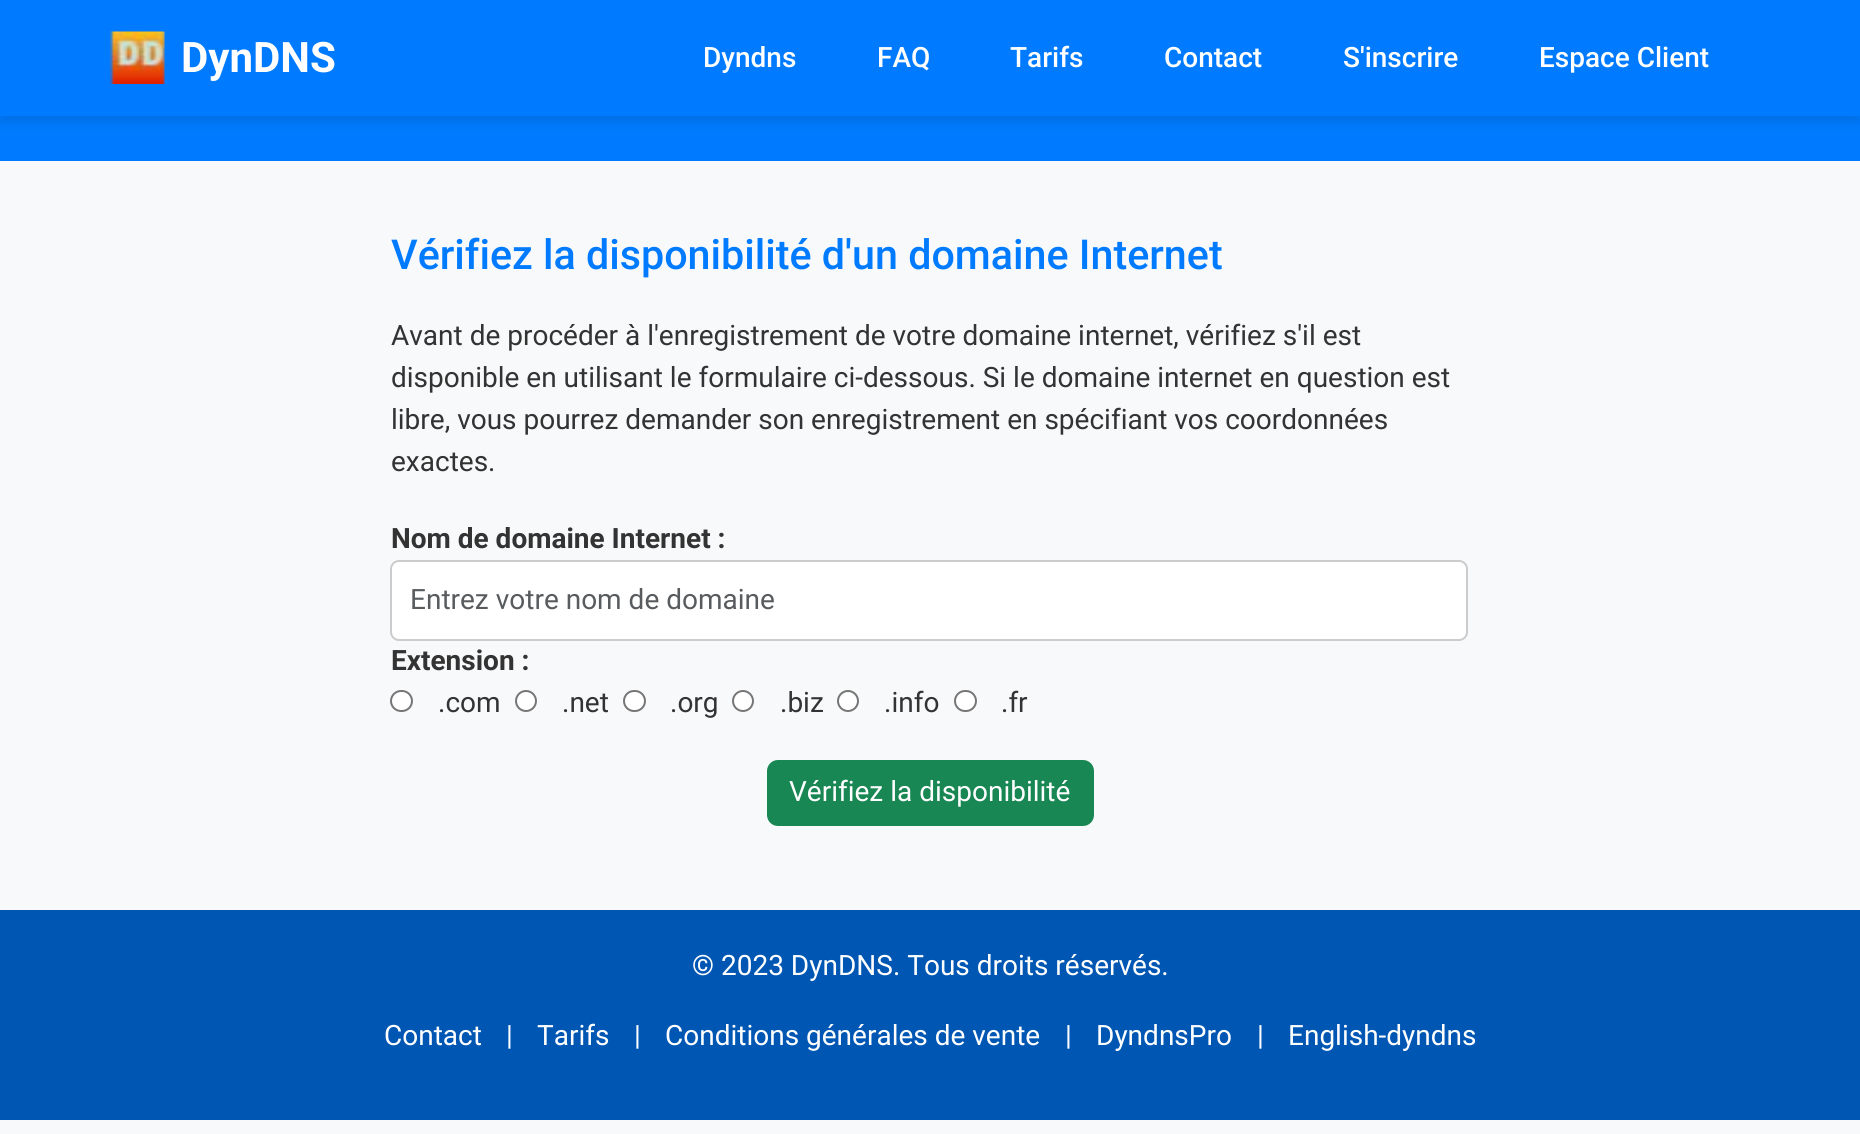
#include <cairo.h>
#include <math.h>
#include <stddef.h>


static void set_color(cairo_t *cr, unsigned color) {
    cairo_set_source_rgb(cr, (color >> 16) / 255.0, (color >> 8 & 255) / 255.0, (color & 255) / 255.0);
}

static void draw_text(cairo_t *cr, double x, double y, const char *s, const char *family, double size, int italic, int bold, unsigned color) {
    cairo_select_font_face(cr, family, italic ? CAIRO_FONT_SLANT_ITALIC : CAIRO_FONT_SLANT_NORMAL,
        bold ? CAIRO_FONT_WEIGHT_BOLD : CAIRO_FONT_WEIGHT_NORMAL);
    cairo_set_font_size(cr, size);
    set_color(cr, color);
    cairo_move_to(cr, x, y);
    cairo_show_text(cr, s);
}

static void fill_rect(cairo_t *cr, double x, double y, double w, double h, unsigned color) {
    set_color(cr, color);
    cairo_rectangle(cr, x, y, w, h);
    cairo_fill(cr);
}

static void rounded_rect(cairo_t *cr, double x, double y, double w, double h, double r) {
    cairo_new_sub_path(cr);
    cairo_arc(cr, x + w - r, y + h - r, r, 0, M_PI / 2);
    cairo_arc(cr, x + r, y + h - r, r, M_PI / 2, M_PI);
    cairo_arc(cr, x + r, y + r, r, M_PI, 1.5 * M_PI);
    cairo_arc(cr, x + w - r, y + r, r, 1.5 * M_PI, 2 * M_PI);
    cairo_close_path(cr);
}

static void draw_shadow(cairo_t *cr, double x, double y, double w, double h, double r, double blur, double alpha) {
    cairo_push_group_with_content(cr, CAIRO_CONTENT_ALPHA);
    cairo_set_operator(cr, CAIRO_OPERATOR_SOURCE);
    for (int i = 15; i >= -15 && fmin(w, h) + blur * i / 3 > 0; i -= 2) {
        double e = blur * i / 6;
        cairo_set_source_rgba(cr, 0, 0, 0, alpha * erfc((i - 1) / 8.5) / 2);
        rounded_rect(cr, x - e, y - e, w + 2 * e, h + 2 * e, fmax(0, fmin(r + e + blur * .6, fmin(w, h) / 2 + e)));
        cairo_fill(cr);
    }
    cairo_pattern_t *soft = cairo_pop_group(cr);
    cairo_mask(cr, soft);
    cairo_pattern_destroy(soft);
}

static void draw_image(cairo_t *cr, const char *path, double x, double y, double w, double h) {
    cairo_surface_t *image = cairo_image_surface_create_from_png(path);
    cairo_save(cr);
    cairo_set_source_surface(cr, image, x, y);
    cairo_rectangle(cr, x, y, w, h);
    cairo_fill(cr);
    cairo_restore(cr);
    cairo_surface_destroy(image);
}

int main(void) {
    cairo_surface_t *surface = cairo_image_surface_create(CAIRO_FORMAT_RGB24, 1860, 1134);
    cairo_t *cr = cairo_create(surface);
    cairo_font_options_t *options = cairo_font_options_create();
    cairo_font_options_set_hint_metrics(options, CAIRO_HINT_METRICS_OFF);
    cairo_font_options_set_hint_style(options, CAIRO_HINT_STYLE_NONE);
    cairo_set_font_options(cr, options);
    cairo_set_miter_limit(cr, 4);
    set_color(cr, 0xF8F9FA);
    cairo_paint(cr);
    fill_rect(cr, 0, 116, 1860, 45, 0x007BFF);
    set_color(cr, 0x000000);
    draw_shadow(cr, 0, 7, 1860, 116, 0, 5, 0.1);
    fill_rect(cr, 0, 0, 1860, 116, 0x007BFF);
    draw_image(cr, "assets/img1.png", 110, 31, 55, 53);
    draw_text(cr, 181, 72, "DynDNS", "Roboto", 42, 0, 1, 0xFFFFFF);
    draw_text(cr, 703, 67, "Dyndns", "Roboto Medium", 28, 0, 0, 0xFFFFFF);
    draw_text(cr, 877, 67, "FAQ", "Roboto Medium", 28, 0, 0, 0xFFFFFF);
    draw_text(cr, 1010, 67, "Tarifs", "Roboto Medium", 28, 0, 0, 0xFFFFFF);
    draw_text(cr, 1164, 67, "Contact", "Roboto Medium", 28, 0, 0, 0xFFFFFF);
    draw_text(cr, 1343, 67, "S'inscrire", "Roboto Medium", 28, 0, 0, 0xFFFFFF);
    draw_text(cr, 1539, 67, "Espace Client", "Roboto Medium", 28, 0, 0, 0xFFFFFF);
    draw_text(cr, 391, 269, "Vérifiez la disponibilité d'un domaine Internet", "Roboto Medium", 41.25, 0, 0, 0x007BFF);
    draw_text(cr, 391, 345, "Avant de procéder à l'enregistrement de votre domaine internet, vérifiez s'il est", "Roboto", 28, 0, 0, 0x333333);
    draw_text(cr, 391, 387, "disponible en utilisant le formulaire ci-dessous. Si le domaine internet en question est", "Roboto", 28, 0, 0, 0x333333);
    draw_text(cr, 391, 429, "libre, vous pourrez demander son enregistrement en spécifiant vos coordonnées", "Roboto", 28, 0, 0, 0x333333);
    draw_text(cr, 391, 471, "exactes.", "Roboto", 28, 0, 0, 0x333333);
    draw_text(cr, 391, 548, "Nom de domaine Internet :", "Roboto", 28, 0, 1, 0x333333);
    set_color(cr, 0xFFFFFF);
    rounded_rect(cr, 391, 561, 1076, 79, 8);
    cairo_fill_preserve(cr);
    set_color(cr, 0xCCCCCC);
    cairo_stroke(cr);
    draw_text(cr, 410, 609, "Entrez votre nom de domaine", "Roboto", 28, 0, 0, 0x595C5F);
    draw_text(cr, 391, 670, "Extension :", "Roboto", 28, 0, 1, 0x333333);
    set_color(cr, 0xFFFFFF);
    rounded_rect(cr, 391, 691, 21, 20, 10);
    cairo_fill_preserve(cr);
    set_color(cr, 0x767676);
    cairo_stroke(cr);
    draw_text(cr, 438, 712, ".com", "Roboto", 28, 0, 0, 0x333333);
    set_color(cr, 0xFFFFFF);
    cairo_new_path(cr);
    cairo_arc(cr, 526, 701, 10, 0, 2 * M_PI);
    cairo_fill_preserve(cr);
    set_color(cr, 0x767676);
    cairo_stroke(cr);
    draw_text(cr, 562, 712, ".net", "Roboto", 28, 0, 0, 0x333333);
    set_color(cr, 0xFFFFFF);
    rounded_rect(cr, 624, 691, 21, 20, 10);
    cairo_fill_preserve(cr);
    set_color(cr, 0x767676);
    cairo_stroke(cr);
    draw_text(cr, 670, 712, ".org", "Roboto", 28, 0, 0, 0x333333);
    set_color(cr, 0xFFFFFF);
    cairo_new_path(cr);
    cairo_arc(cr, 743, 701, 10, 0, 2 * M_PI);
    cairo_fill_preserve(cr);
    set_color(cr, 0x767676);
    cairo_stroke(cr);
    draw_text(cr, 780, 712, ".biz", "Roboto", 28, 0, 0, 0x333333);
    set_color(cr, 0xFFFFFF);
    cairo_new_path(cr);
    cairo_arc(cr, 848, 701, 10, 0, 2 * M_PI);
    cairo_fill_preserve(cr);
    set_color(cr, 0x767676);
    cairo_stroke(cr);
    draw_text(cr, 884, 712, ".info", "Roboto", 28, 0, 0, 0x333333);
    set_color(cr, 0xFFFFFF);
    rounded_rect(cr, 955, 691, 21, 20, 10);
    cairo_fill_preserve(cr);
    set_color(cr, 0x767676);
    cairo_stroke(cr);
    draw_text(cr, 1001, 712, ".fr", "Roboto", 28, 0, 0, 0x333333);
    set_color(cr, 0x198754);
    rounded_rect(cr, 768, 761, 325, 64, 10);
    cairo_fill_preserve(cr);
    cairo_stroke(cr);
    draw_text(cr, 789, 801, "Vérifiez la disponibilité", "Roboto", 28, 0, 0, 0xFFFFFF);
    fill_rect(cr, 0, 910, 1860, 210, 0x0056B3);
    draw_text(cr, 692, 975, "© 2023 DynDNS. Tous droits réservés.", "Roboto", 28, 0, 0, 0xFFFFFF);
    draw_text(cr, 384, 1045, "Contact", "Roboto", 28, 0, 0, 0xFFFFFF);
    draw_text(cr, 506, 1045, "|", "Roboto", 28, 0, 0, 0xFFFFFF);
    draw_text(cr, 537, 1045, "Tarifs", "Roboto", 28, 0, 0, 0xFFFFFF);
    draw_text(cr, 634, 1045, "|", "Roboto", 28, 0, 0, 0xFFFFFF);
    draw_text(cr, 665, 1045, "Conditions générales de vente", "Roboto", 28, 0, 0, 0xFFFFFF);
    draw_text(cr, 1065, 1045, "|", "Roboto", 28, 0, 0, 0xFFFFFF);
    draw_text(cr, 1096, 1045, "DyndnsPro", "Roboto", 28, 0, 0, 0xFFFFFF);
    draw_text(cr, 1257, 1045, "|", "Roboto", 28, 0, 0, 0xFFFFFF);
    draw_text(cr, 1288, 1045, "English-dyndns", "Roboto", 28, 0, 0, 0xFFFFFF);
    cairo_surface_write_to_png(surface, "output.png");
    cairo_font_options_destroy(options);
    cairo_destroy(cr);
    cairo_surface_destroy(surface);
    return 0;
}
